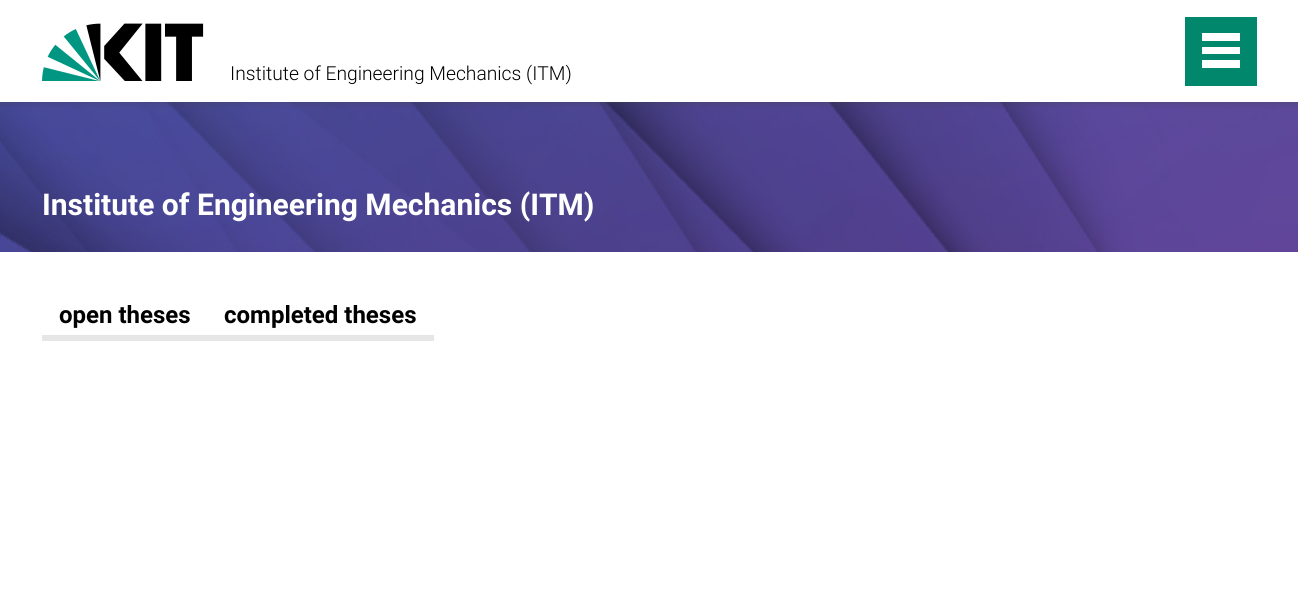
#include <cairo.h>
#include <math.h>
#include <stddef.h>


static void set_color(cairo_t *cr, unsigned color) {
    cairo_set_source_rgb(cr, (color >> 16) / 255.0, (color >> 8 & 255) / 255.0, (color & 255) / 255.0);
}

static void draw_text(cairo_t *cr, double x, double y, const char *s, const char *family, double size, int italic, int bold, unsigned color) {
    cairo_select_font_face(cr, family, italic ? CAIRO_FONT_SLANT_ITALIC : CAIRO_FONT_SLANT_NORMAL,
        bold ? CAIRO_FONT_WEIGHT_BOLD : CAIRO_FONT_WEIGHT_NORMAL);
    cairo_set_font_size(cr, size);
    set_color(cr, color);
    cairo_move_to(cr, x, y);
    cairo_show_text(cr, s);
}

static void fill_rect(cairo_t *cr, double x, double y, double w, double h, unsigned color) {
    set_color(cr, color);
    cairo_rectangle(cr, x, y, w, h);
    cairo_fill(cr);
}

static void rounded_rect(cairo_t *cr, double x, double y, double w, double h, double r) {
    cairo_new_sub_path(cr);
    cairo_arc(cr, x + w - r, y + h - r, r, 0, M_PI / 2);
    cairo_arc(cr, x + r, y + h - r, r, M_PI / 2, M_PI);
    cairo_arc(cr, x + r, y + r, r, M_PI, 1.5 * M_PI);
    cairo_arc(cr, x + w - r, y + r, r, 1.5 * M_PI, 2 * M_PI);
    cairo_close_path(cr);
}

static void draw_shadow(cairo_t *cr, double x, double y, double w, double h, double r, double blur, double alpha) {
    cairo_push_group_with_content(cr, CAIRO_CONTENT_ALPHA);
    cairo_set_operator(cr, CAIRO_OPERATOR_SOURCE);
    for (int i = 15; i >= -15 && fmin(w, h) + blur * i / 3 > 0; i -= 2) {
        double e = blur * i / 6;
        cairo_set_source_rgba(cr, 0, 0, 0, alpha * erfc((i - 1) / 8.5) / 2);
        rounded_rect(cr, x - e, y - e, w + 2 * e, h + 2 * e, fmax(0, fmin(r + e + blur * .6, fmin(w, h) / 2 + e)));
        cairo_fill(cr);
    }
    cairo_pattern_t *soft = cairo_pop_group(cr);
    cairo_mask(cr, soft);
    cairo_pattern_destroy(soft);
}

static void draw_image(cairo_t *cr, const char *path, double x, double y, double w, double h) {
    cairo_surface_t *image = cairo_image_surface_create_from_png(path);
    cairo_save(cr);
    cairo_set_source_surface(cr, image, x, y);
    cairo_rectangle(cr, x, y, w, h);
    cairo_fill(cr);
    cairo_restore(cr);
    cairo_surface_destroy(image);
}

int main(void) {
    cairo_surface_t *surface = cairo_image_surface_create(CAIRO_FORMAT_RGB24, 1298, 602);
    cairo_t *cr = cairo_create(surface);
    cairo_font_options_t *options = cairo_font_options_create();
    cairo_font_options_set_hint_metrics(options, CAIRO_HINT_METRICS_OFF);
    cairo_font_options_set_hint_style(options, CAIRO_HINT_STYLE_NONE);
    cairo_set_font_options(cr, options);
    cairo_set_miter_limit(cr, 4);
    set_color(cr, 0xFFFFFF);
    cairo_paint(cr);
    draw_image(cr, "assets/img2.png", 0, 102, 1298, 150);
    cairo_save(cr);
    cairo_rectangle(cr, 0, 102, 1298, 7);
    cairo_clip(cr);
    set_color(cr, 0x404040);
    draw_shadow(cr, 0, 0, 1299, 102, 0, 4, 0.5);
    cairo_restore(cr);
    draw_image(cr, "assets/img1.png", 42, 23, 162, 58);
    draw_text(cr, 230, 80, "Institute of Engineering Mechanics (ITM)", "Roboto Light", 19.25, 0, 0, 0x000000);
    fill_rect(cr, 1185, 17, 72, 69, 0x00876C);
    fill_rect(cr, 1202, 60, 38, 8, 0xFFFFFF);
    fill_rect(cr, 1202, 47, 38, 7, 0xFFFFFF);
    fill_rect(cr, 1202, 33, 38, 8, 0xFFFFFF);
    draw_text(cr, 42, 215, "Institute of Engineering Mechanics (ITM)", "Roboto", 30, 0, 1, 0xFFFFFF);
    fill_rect(cr, 42, 335, 392, 6, 0xE6E6E6);
    draw_text(cr, 59, 323, "open theses", "Roboto", 24, 0, 1, 0x000000);
    draw_text(cr, 224, 323, "completed theses", "Roboto", 24, 0, 1, 0x000000);
    cairo_surface_write_to_png(surface, "output.png");
    cairo_font_options_destroy(options);
    cairo_destroy(cr);
    cairo_surface_destroy(surface);
    return 0;
}
